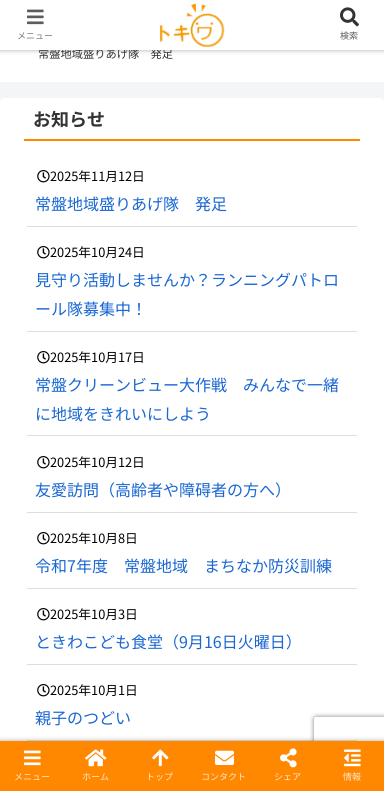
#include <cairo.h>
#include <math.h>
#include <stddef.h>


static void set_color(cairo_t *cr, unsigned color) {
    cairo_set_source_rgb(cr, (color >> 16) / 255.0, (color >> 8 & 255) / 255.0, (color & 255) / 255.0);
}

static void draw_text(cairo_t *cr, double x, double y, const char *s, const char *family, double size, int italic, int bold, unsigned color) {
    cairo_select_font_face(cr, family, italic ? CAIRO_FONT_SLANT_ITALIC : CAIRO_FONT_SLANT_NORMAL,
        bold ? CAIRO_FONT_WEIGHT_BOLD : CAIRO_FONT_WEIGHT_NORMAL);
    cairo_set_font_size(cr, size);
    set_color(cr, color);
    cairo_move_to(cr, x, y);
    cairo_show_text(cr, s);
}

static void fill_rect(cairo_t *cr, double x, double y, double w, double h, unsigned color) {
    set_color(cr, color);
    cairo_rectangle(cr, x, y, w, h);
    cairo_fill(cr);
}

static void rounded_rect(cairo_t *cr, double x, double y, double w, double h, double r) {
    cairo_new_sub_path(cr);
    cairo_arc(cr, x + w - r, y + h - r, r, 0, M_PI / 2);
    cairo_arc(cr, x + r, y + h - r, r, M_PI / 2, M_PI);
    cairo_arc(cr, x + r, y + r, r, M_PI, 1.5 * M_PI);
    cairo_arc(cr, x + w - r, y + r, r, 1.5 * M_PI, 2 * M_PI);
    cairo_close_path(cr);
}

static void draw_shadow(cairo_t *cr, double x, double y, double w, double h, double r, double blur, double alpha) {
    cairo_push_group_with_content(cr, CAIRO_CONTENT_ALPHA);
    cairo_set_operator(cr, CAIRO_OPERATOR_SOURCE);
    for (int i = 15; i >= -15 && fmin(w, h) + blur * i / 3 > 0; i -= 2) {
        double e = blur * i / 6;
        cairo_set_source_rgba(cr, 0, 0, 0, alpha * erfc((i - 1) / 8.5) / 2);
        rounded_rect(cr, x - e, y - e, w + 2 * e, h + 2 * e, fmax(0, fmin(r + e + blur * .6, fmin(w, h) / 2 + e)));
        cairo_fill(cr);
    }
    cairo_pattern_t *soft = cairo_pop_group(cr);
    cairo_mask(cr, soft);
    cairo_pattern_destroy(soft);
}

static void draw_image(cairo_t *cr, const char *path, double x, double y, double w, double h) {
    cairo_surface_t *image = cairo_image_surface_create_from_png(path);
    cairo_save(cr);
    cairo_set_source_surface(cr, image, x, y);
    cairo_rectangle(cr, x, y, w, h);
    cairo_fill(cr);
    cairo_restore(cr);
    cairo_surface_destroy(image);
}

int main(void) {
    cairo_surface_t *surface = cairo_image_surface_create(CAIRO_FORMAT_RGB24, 384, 791);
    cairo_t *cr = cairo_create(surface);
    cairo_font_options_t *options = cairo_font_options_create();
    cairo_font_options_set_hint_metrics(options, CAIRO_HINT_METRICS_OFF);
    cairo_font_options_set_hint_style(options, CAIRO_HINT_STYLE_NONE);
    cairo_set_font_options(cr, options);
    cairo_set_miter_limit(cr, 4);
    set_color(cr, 0xF4F5F7);
    cairo_paint(cr);
    fill_rect(cr, 0, 50, 384, 32, 0xFFFFFF);
    set_color(cr, 0xA9A9A9);
    draw_shadow(cr, 0, 0, 384, 50, 0, 2.5, 1);
    draw_text(cr, 38, 58, "常盤地域盛りあげ隊　発足", "Noto Sans JP", 11.25, 0, 0, 0x333333);
    fill_rect(cr, 0, 0, 384, 50, 0xFFFFFF);
    draw_image(cr, "assets/img1.png", 27, 9, 17, 16);
    draw_text(cr, 17, 39, "メニュー", "Noto Sans JP", 9, 0, 0, 0x7C7C7C);
    draw_image(cr, "assets/img2.png", 159, 3, 66, 44);
    draw_image(cr, "assets/img3.png", 340, 7, 19, 20);
    draw_text(cr, 340, 39, "検索", "Noto Sans JP", 9, 0, 0, 0x5C5C5C);
    set_color(cr, 0xFFFFFF);
    rounded_rect(cr, 0, 98, 384, 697, 4);
    cairo_fill(cr);
    fill_rect(cr, 24, 139, 336, 2, 0xFF8800);
    draw_text(cr, 33, 126, "お知らせ", "Noto Sans JP", 18, 0, 1, 0x333333);
    fill_rect(cr, 27, 226, 330, 1, 0xDDDDDD);
    draw_image(cr, "assets/img4.png", 37, 170, 13, 13);
    draw_text(cr, 50, 181, "2025年11月12日", "Noto Sans JP", 12.75, 0, 0, 0x000000);
    draw_text(cr, 35, 210, "常盤地域盛りあげ隊　発足", "Noto Sans JP", 16, 0, 0, 0x1967D2);
    fill_rect(cr, 27, 331, 330, 1, 0xDDDDDD);
    draw_image(cr, "assets/img4.png", 37, 246, 13, 13);
    draw_text(cr, 50, 257, "2025年10月24日", "Noto Sans JP", 12.75, 0, 0, 0x000000);
    draw_text(cr, 35, 286, "見守り活動しませんか？ランニングパトロ", "Noto Sans JP", 16, 0, 0, 0x1967D2);
    draw_text(cr, 35, 315, "ール隊募集中！", "Noto Sans JP", 16, 0, 0, 0x1967D2);
    fill_rect(cr, 27, 435, 330, 1, 0xDDDDDD);
    draw_image(cr, "assets/img4.png", 37, 351, 13, 13);
    draw_text(cr, 50, 362, "2025年10月17日", "Noto Sans JP", 12.75, 0, 0, 0x000000);
    draw_text(cr, 35, 391, "常盤クリーンビュー大作戦　みんなで一緒", "Noto Sans JP", 16, 0, 0, 0x1967D2);
    draw_text(cr, 35, 420, "に地域をきれいにしよう", "Noto Sans JP", 16, 0, 0, 0x1967D2);
    fill_rect(cr, 27, 512, 330, 1, 0xDDDDDD);
    draw_image(cr, "assets/img4.png", 37, 456, 13, 13);
    draw_text(cr, 50, 467, "2025年10月12日", "Noto Sans JP", 12.75, 0, 0, 0x000000);
    draw_text(cr, 35, 496, "友愛訪問（高齢者や障碍者の方へ）", "Noto Sans JP", 16, 0, 0, 0x1967D2);
    fill_rect(cr, 27, 588, 330, 1, 0xDDDDDD);
    draw_image(cr, "assets/img4.png", 37, 532, 13, 13);
    draw_text(cr, 50, 543, "2025年10月8日", "Noto Sans JP", 12.75, 0, 0, 0x000000);
    draw_text(cr, 35, 572, "令和7年度　常盤地域　まちなか防災訓練", "Noto Sans JP", 16, 0, 0, 0x1967D2);
    fill_rect(cr, 27, 664, 330, 1, 0xDDDDDD);
    draw_image(cr, "assets/img4.png", 37, 608, 13, 13);
    draw_text(cr, 50, 619, "2025年10月3日", "Noto Sans JP", 12.75, 0, 0, 0x000000);
    draw_text(cr, 35, 648, "ときわこども食堂（9月16日火曜日）", "Noto Sans JP", 16, 0, 0, 0x1967D2);
    fill_rect(cr, 27, 740, 330, 1, 0xDDDDDD);
    draw_image(cr, "assets/img4.png", 37, 684, 13, 13);
    draw_text(cr, 50, 695, "2025年10月1日", "Noto Sans JP", 12.75, 0, 0, 0x000000);
    draw_text(cr, 35, 724, "親子のつどい", "Noto Sans JP", 16, 0, 0, 0x1967D2);
    set_color(cr, 0xA9A9A9);
    draw_shadow(cr, 0, 741, 384, 50, 0, 2.5, 1);
    cairo_save(cr);
    cairo_set_fill_rule(cr, CAIRO_FILL_RULE_EVEN_ODD);
    cairo_new_path(cr);
    cairo_move_to(cr, 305, 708);
    cairo_line_to(cr, 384, 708);
    cairo_line_to(cr, 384, 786);
    cairo_line_to(cr, 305, 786);
    cairo_close_path(cr);
    cairo_move_to(cr, 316, 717);
    cairo_line_to(cr, 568, 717);
    cairo_curve_to(cr, 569, 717, 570, 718, 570, 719);
    cairo_line_to(cr, 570, 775);
    cairo_curve_to(cr, 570, 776, 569, 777, 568, 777);
    cairo_line_to(cr, 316, 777);
    cairo_curve_to(cr, 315, 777, 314, 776, 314, 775);
    cairo_line_to(cr, 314, 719);
    cairo_curve_to(cr, 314, 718, 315, 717, 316, 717);
    cairo_close_path(cr);
    cairo_clip(cr);
    set_color(cr, 0x808080);
    draw_shadow(cr, 314, 717, 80, 60, 2, 2.5, 1);
    cairo_restore(cr);
    fill_rect(cr, 0, 741, 384, 50, 0xFF8800);
    draw_image(cr, "assets/img5.png", 24, 750, 17, 16);
    draw_text(cr, 14, 780, "メニュー", "Noto Sans JP", 9, 0, 0, 0xFFE7CC);
    draw_image(cr, "assets/img6.png", 85, 749, 22, 18);
    draw_text(cr, 82, 780, "ホーム", "Noto Sans JP", 9, 0, 0, 0xFFE7CC);
    draw_image(cr, "assets/img7.png", 152, 749, 17, 18);
    draw_text(cr, 146, 780, "トップ", "Noto Sans JP", 9, 0, 0, 0xFFE7CC);
    draw_image(cr, "assets/img8.png", 215, 750, 19, 15);
    draw_text(cr, 201, 780, "コンタクト", "Noto Sans JP", 9, 0, 0, 0xFFE7CC);
    draw_image(cr, "assets/img9.png", 280, 748, 17, 20);
    draw_text(cr, 274, 780, "シェア", "Noto Sans JP", 9, 0, 0, 0xFFE7CC);
    draw_image(cr, "assets/img10.png", 344, 749, 17, 18);
    draw_text(cr, 343, 780, "情報", "Noto Sans JP", 9, 0, 0, 0xFFE7CC);
    cairo_surface_write_to_png(surface, "output.png");
    cairo_font_options_destroy(options);
    cairo_destroy(cr);
    cairo_surface_destroy(surface);
    return 0;
}
